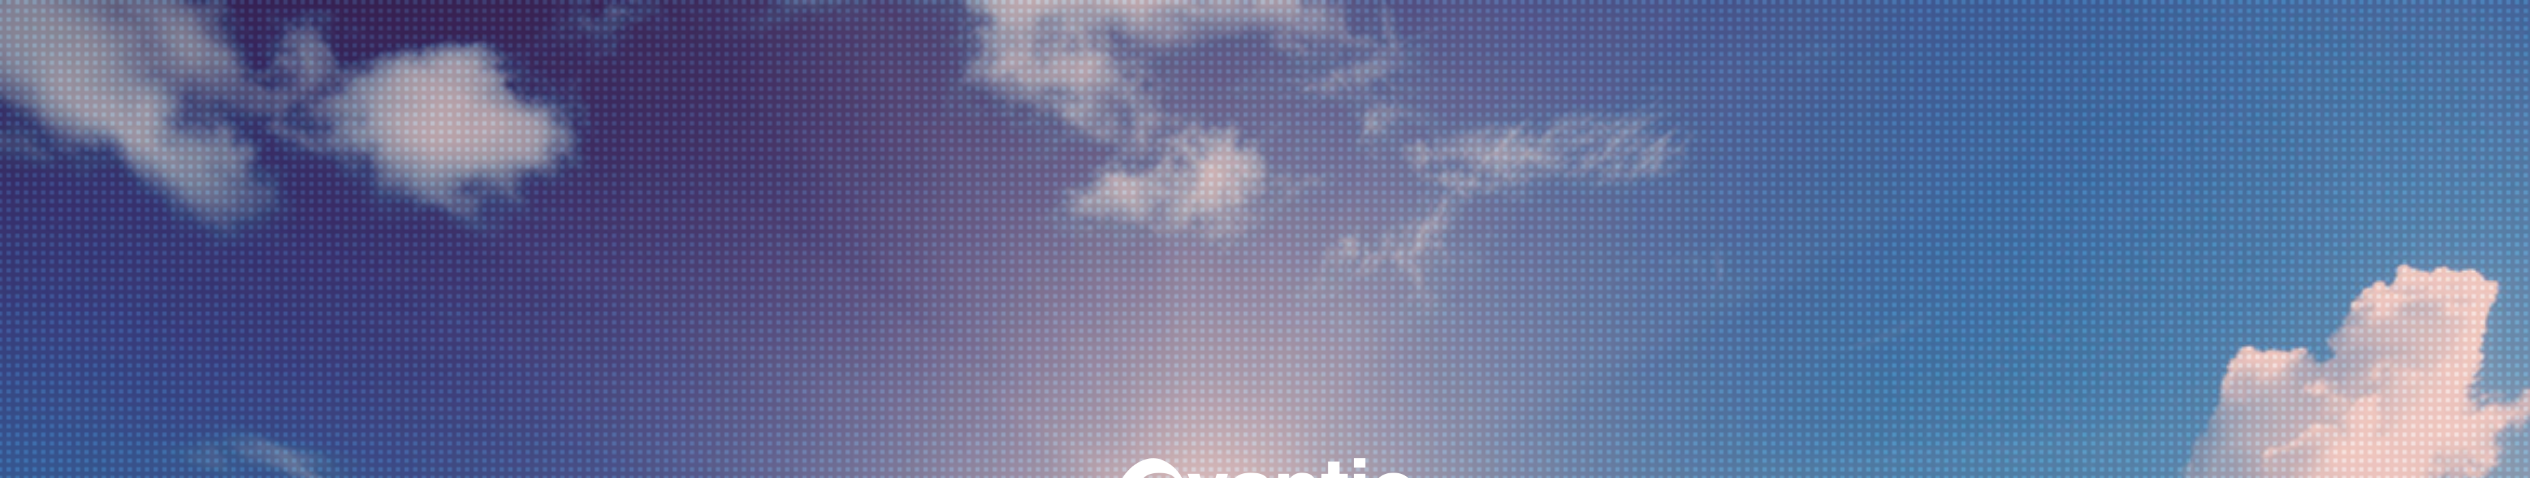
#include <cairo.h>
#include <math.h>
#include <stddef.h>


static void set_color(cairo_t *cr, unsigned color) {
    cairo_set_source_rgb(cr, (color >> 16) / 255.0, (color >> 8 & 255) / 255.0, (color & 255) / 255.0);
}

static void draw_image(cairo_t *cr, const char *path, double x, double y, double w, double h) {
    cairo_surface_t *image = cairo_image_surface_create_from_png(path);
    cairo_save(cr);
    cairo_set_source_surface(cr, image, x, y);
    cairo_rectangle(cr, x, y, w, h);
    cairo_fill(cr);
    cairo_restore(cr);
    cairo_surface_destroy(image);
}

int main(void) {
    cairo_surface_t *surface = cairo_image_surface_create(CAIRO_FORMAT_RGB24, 2530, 478);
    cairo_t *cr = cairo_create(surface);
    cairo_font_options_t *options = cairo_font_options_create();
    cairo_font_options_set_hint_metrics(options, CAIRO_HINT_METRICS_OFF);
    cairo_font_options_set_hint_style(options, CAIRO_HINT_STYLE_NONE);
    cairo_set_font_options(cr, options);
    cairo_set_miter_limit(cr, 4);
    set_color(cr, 0xFFFFFF);
    cairo_paint(cr);
    draw_image(cr, "assets/img1.png", 0, 0, 2530, 478);
    draw_image(cr, "assets/img2.png", 0, 0, 2530, 478);
    draw_image(cr, "assets/img3.png", 1122, 458, 287, 20);
    cairo_surface_write_to_png(surface, "output.png");
    cairo_font_options_destroy(options);
    cairo_destroy(cr);
    cairo_surface_destroy(surface);
    return 0;
}
